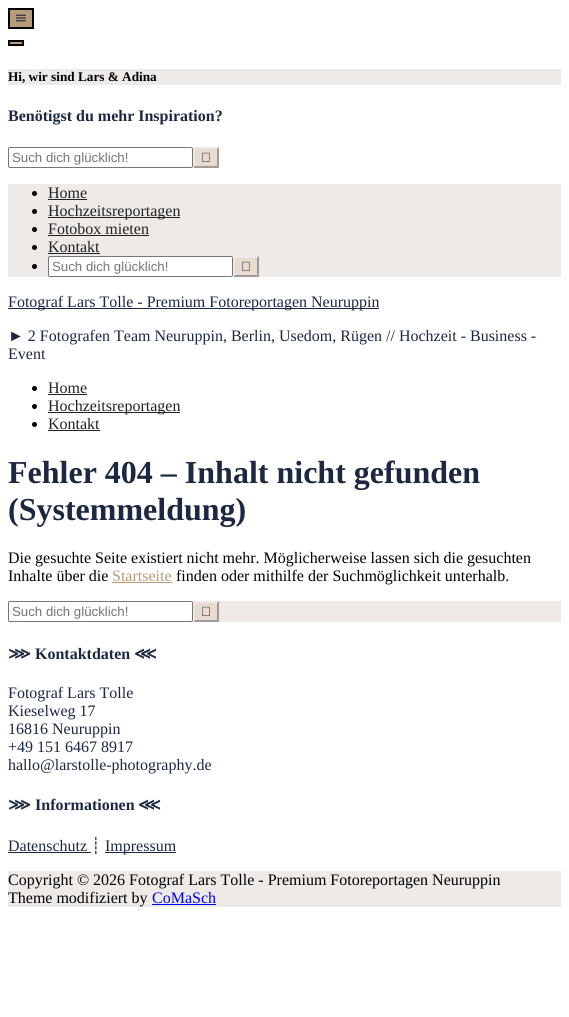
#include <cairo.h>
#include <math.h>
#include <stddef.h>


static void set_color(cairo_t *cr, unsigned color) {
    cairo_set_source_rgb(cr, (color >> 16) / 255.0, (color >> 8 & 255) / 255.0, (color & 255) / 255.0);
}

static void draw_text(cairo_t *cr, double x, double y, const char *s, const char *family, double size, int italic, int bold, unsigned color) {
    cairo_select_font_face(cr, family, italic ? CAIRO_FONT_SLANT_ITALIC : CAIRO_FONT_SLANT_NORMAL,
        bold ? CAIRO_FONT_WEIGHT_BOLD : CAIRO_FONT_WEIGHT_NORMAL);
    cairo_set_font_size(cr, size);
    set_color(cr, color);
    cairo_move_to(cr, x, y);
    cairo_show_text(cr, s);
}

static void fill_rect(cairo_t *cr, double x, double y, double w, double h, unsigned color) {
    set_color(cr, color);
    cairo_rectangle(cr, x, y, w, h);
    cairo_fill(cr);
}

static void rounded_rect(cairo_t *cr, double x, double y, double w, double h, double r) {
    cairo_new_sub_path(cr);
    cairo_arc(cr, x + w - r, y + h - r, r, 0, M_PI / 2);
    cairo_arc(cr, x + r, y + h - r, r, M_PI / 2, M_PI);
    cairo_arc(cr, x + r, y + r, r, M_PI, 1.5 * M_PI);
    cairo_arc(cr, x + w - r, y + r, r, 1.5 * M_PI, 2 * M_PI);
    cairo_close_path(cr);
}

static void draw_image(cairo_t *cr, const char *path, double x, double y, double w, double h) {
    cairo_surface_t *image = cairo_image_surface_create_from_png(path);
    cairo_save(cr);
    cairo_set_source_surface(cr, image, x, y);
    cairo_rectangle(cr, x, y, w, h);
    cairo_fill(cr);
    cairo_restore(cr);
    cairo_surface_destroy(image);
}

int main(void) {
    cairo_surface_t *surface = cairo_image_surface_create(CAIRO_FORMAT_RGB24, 569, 1017);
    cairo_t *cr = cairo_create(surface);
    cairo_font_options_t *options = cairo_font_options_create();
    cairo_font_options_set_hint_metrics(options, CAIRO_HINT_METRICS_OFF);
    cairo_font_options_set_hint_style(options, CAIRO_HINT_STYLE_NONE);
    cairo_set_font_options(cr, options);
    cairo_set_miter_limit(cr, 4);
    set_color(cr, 0xFFFFFF);
    cairo_paint(cr);
    set_color(cr, 0xB79C7B);
    cairo_rectangle(cr, 9, 9, 24, 19);
    cairo_fill_preserve(cr);
    set_color(cr, 0x000000);
    cairo_stroke(cr);
    draw_image(cr, "assets/img1.png", 16, 14, 10, 8);
    set_color(cr, 0xB79C7B);
    cairo_rectangle(cr, 9, 41, 14, 4);
    cairo_fill_preserve(cr);
    set_color(cr, 0x000000);
    cairo_stroke(cr);
    fill_rect(cr, 8, 69, 553, 16, 0xEEEAE8);
    draw_text(cr, 8, 81, "Hi, wir sind Lars & Adina", "Liberation Serif", 13.25, 0, 1, 0x000000);
    draw_text(cr, 8, 121, "Benötigst du mehr Inspiration?", "Liberation Serif", 16, 0, 1, 0x1C2841);
    rounded_rect(cr, 8.5, 147.5, 184, 20, 1.5);
    set_color(cr, 0x767676);
    cairo_set_line_width(cr, 1);
    cairo_stroke(cr);
    draw_text(cr, 12, 162, "Such dich glücklich!", "Liberation Sans", 13.25, 0, 0, 0x757575);
    fill_rect(cr, 193, 147, 26, 21, 0xEADBCF);
    set_color(cr, 0xEEE9E8);
    cairo_new_path(cr);
    cairo_move_to(cr, 193, 147);
    cairo_line_to(cr, 219, 147);
    cairo_line_to(cr, 217, 149);
    cairo_line_to(cr, 195, 149);
    cairo_close_path(cr);
    cairo_fill(cr);
    set_color(cr, 0x9F9B9B);
    cairo_new_path(cr);
    cairo_move_to(cr, 219, 147);
    cairo_line_to(cr, 219, 168);
    cairo_line_to(cr, 217, 166);
    cairo_line_to(cr, 217, 149);
    cairo_close_path(cr);
    cairo_fill(cr);
    cairo_new_path(cr);
    cairo_move_to(cr, 219, 168);
    cairo_line_to(cr, 193, 168);
    cairo_line_to(cr, 195, 166);
    cairo_line_to(cr, 217, 166);
    cairo_close_path(cr);
    cairo_fill(cr);
    set_color(cr, 0xEEE9E8);
    cairo_new_path(cr);
    cairo_move_to(cr, 193, 168);
    cairo_line_to(cr, 193, 147);
    cairo_line_to(cr, 195, 149);
    cairo_line_to(cr, 195, 166);
    cairo_close_path(cr);
    cairo_fill(cr);
    draw_image(cr, "assets/img2.png", 202, 152, 8, 10);
    fill_rect(cr, 8, 184, 553, 93, 0xEEEAE8);
    set_color(cr, 0x000000);
    cairo_arc(cr, 34.5, 193.5, 2.5, 0, 2 * M_PI);
    cairo_fill(cr);
    draw_text(cr, 48, 198, "Home", "Liberation Serif", 16, 0, 0, 0x222222);
    fill_rect(cr, 48, 199, 39, 1, 0x222222);
    set_color(cr, 0x000000);
    cairo_new_path(cr);
    cairo_arc(cr, 34.5, 211.5, 2.5, 0, 2 * M_PI);
    cairo_fill(cr);
    fill_rect(cr, 48, 217, 132, 1, 0x222222);
    draw_text(cr, 48, 216, "Hochzeitsreportagen", "Liberation Serif", 16, 0, 0, 0x222222);
    set_color(cr, 0x000000);
    cairo_new_path(cr);
    cairo_arc(cr, 34.5, 229.5, 2.5, 0, 2 * M_PI);
    cairo_fill(cr);
    draw_text(cr, 48, 234, "Fotobox mieten", "Liberation Serif", 16, 0, 0, 0x222222);
    fill_rect(cr, 48, 235, 101, 1, 0x222222);
    set_color(cr, 0x000000);
    cairo_new_path(cr);
    cairo_arc(cr, 34.5, 247.5, 2.5, 0, 2 * M_PI);
    cairo_fill(cr);
    draw_text(cr, 48, 252, "Kontakt", "Liberation Serif", 16, 0, 0, 0x222222);
    fill_rect(cr, 48, 253, 52, 1, 0x222222);
    set_color(cr, 0x000000);
    cairo_new_path(cr);
    cairo_arc(cr, 34.5, 266.5, 2.5, 0, 2 * M_PI);
    cairo_fill(cr);
    set_color(cr, 0xFFFFFF);
    rounded_rect(cr, 48.5, 256.5, 184, 20, 1.5);
    cairo_fill_preserve(cr);
    set_color(cr, 0x767676);
    cairo_stroke(cr);
    draw_text(cr, 52, 271, "Such dich glücklich!", "Liberation Sans", 13.25, 0, 0, 0x757575);
    fill_rect(cr, 233, 256, 26, 21, 0xEADBCF);
    set_color(cr, 0xEEE9E8);
    cairo_new_path(cr);
    cairo_move_to(cr, 233, 256);
    cairo_line_to(cr, 259, 256);
    cairo_line_to(cr, 257, 258);
    cairo_line_to(cr, 235, 258);
    cairo_close_path(cr);
    cairo_fill(cr);
    set_color(cr, 0x9F9B9B);
    cairo_new_path(cr);
    cairo_move_to(cr, 259, 256);
    cairo_line_to(cr, 259, 277);
    cairo_line_to(cr, 257, 275);
    cairo_line_to(cr, 257, 258);
    cairo_close_path(cr);
    cairo_fill(cr);
    cairo_new_path(cr);
    cairo_move_to(cr, 259, 277);
    cairo_line_to(cr, 233, 277);
    cairo_line_to(cr, 235, 275);
    cairo_line_to(cr, 257, 275);
    cairo_close_path(cr);
    cairo_fill(cr);
    set_color(cr, 0xEEE9E8);
    cairo_new_path(cr);
    cairo_move_to(cr, 233, 277);
    cairo_line_to(cr, 233, 256);
    cairo_line_to(cr, 235, 258);
    cairo_line_to(cr, 235, 275);
    cairo_close_path(cr);
    cairo_fill(cr);
    draw_image(cr, "assets/img2.png", 242, 261, 8, 10);
    fill_rect(cr, 8, 308, 371, 1, 0x1C2841);
    draw_text(cr, 8, 307, "Fotograf Lars Tolle - Premium Fotoreportagen Neuruppin", "Liberation Serif", 16, 0, 0, 0x1C2841);
    draw_text(cr, 8, 341, "► 2 Fotografen Team Neuruppin, Berlin, Usedom, Rügen // Hochzeit - Business -", "Liberation Serif", 16, 0, 0, 0x1C2841);
    draw_text(cr, 8, 359, "Event", "Liberation Serif", 16, 0, 0, 0x1C2841);
    set_color(cr, 0x000000);
    cairo_new_path(cr);
    cairo_arc(cr, 34.5, 388.5, 2.5, 0, 2 * M_PI);
    cairo_fill(cr);
    draw_text(cr, 48, 393, "Home", "Liberation Serif", 16, 0, 0, 0x222222);
    fill_rect(cr, 48, 394, 39, 1, 0x222222);
    set_color(cr, 0x000000);
    cairo_new_path(cr);
    cairo_arc(cr, 34.5, 406.5, 2.5, 0, 2 * M_PI);
    cairo_fill(cr);
    fill_rect(cr, 48, 412, 132, 1, 0x222222);
    draw_text(cr, 48, 411, "Hochzeitsreportagen", "Liberation Serif", 16, 0, 0, 0x222222);
    set_color(cr, 0x000000);
    cairo_new_path(cr);
    cairo_arc(cr, 34.5, 424.5, 2.5, 0, 2 * M_PI);
    cairo_fill(cr);
    draw_text(cr, 48, 429, "Kontakt", "Liberation Serif", 16, 0, 0, 0x222222);
    fill_rect(cr, 48, 430, 52, 1, 0x222222);
    draw_text(cr, 8, 483, "Fehler 404 – Inhalt nicht gefunden", "Liberation Serif", 32, 0, 1, 0x1C2841);
    draw_text(cr, 8, 520, "(Systemmeldung)", "Liberation Serif", 32, 0, 1, 0x1C2841);
    draw_text(cr, 8, 563, "Die gesuchte Seite existiert nicht mehr. Möglicherweise lassen sich die gesuchten", "Liberation Serif", 16, 0, 0, 0x000000);
    draw_text(cr, 8, 581, "Inhalte über die", "Liberation Serif", 16, 0, 0, 0x000000);
    draw_text(cr, 112, 581, "Startseite", "Liberation Serif", 16, 0, 0, 0xB79C7B);
    fill_rect(cr, 112, 582, 60, 1, 0xB79C7B);
    draw_text(cr, 176, 581, "finden oder mithilfe der Suchmöglichkeit unterhalb.", "Liberation Serif", 16, 0, 0, 0x000000);
    fill_rect(cr, 8, 601, 553, 21, 0xEEEAE8);
    set_color(cr, 0xFFFFFF);
    rounded_rect(cr, 8.5, 601.5, 184, 20, 1.5);
    cairo_fill_preserve(cr);
    set_color(cr, 0x767676);
    cairo_stroke(cr);
    draw_text(cr, 12, 616, "Such dich glücklich!", "Liberation Sans", 13.25, 0, 0, 0x757575);
    fill_rect(cr, 193, 601, 26, 21, 0xEADBCF);
    set_color(cr, 0xEEE9E8);
    cairo_new_path(cr);
    cairo_move_to(cr, 193, 601);
    cairo_line_to(cr, 219, 601);
    cairo_line_to(cr, 217, 603);
    cairo_line_to(cr, 195, 603);
    cairo_close_path(cr);
    cairo_fill(cr);
    set_color(cr, 0x9F9B9B);
    cairo_new_path(cr);
    cairo_move_to(cr, 219, 601);
    cairo_line_to(cr, 219, 622);
    cairo_line_to(cr, 217, 620);
    cairo_line_to(cr, 217, 603);
    cairo_close_path(cr);
    cairo_fill(cr);
    cairo_new_path(cr);
    cairo_move_to(cr, 219, 622);
    cairo_line_to(cr, 193, 622);
    cairo_line_to(cr, 195, 620);
    cairo_line_to(cr, 217, 620);
    cairo_close_path(cr);
    cairo_fill(cr);
    set_color(cr, 0xEEE9E8);
    cairo_new_path(cr);
    cairo_move_to(cr, 193, 622);
    cairo_line_to(cr, 193, 601);
    cairo_line_to(cr, 195, 603);
    cairo_line_to(cr, 195, 620);
    cairo_close_path(cr);
    cairo_fill(cr);
    draw_image(cr, "assets/img2.png", 202, 606, 8, 10);
    draw_text(cr, 8, 659, "⋙", "DejaVu Sans", 16, 0, 1, 0x1C2841);
    draw_text(cr, 35, 659, "Kontaktdaten", "Liberation Serif", 16, 0, 1, 0x1C2841);
    draw_text(cr, 134, 659, "⋘", "DejaVu Sans", 16, 0, 1, 0x1C2841);
    draw_text(cr, 8, 698, "Fotograf Lars Tolle", "Liberation Serif", 16, 0, 0, 0x1C2841);
    draw_text(cr, 8, 716, "Kieselweg 17", "Liberation Serif", 16, 0, 0, 0x1C2841);
    draw_text(cr, 8, 734, "16816 Neuruppin", "Liberation Serif", 16, 0, 0, 0x1C2841);
    draw_text(cr, 8, 752, "+49 151 6467 8917", "Liberation Serif", 16, 0, 0, 0x1C2841);
    draw_text(cr, 8, 770, "hallo@larstolle-photography.de", "Liberation Serif", 16, 0, 0, 0x1C2841);
    draw_text(cr, 8, 810, "⋙", "DejaVu Sans", 16, 0, 1, 0x1C2841);
    draw_text(cr, 35, 810, "Informationen", "Liberation Serif", 16, 0, 1, 0x1C2841);
    draw_text(cr, 138, 810, "⋘", "DejaVu Sans", 16, 0, 1, 0x1C2841);
    draw_text(cr, 8, 851, "Datenschutz", "Liberation Serif", 16, 0, 0, 0x1C2841);
    fill_rect(cr, 8, 852, 83, 1, 0x1C2841);
    draw_text(cr, 91, 851, "┊", "DejaVu Sans", 16, 0, 0, 0x1C2841);
    fill_rect(cr, 105, 852, 71, 1, 0x1C2841);
    draw_text(cr, 105, 851, "Impressum", "Liberation Serif", 16, 0, 0, 0x1C2841);
    fill_rect(cr, 8, 871, 553, 36, 0xEEEAE8);
    draw_text(cr, 8, 885, "Copyright © 2026 Fotograf Lars Tolle - Premium Fotoreportagen Neuruppin", "Liberation Serif", 16, 0, 0, 0x000000);
    draw_text(cr, 8, 903, "Theme modifiziert by", "Liberation Serif", 16, 0, 0, 0x000000);
    draw_text(cr, 152, 903, "CoMaSch", "Liberation Serif", 16, 0, 0, 0x0000EE);
    fill_rect(cr, 152, 904, 64, 1, 0x0000EE);
    cairo_surface_write_to_png(surface, "output.png");
    cairo_font_options_destroy(options);
    cairo_destroy(cr);
    cairo_surface_destroy(surface);
    return 0;
}
